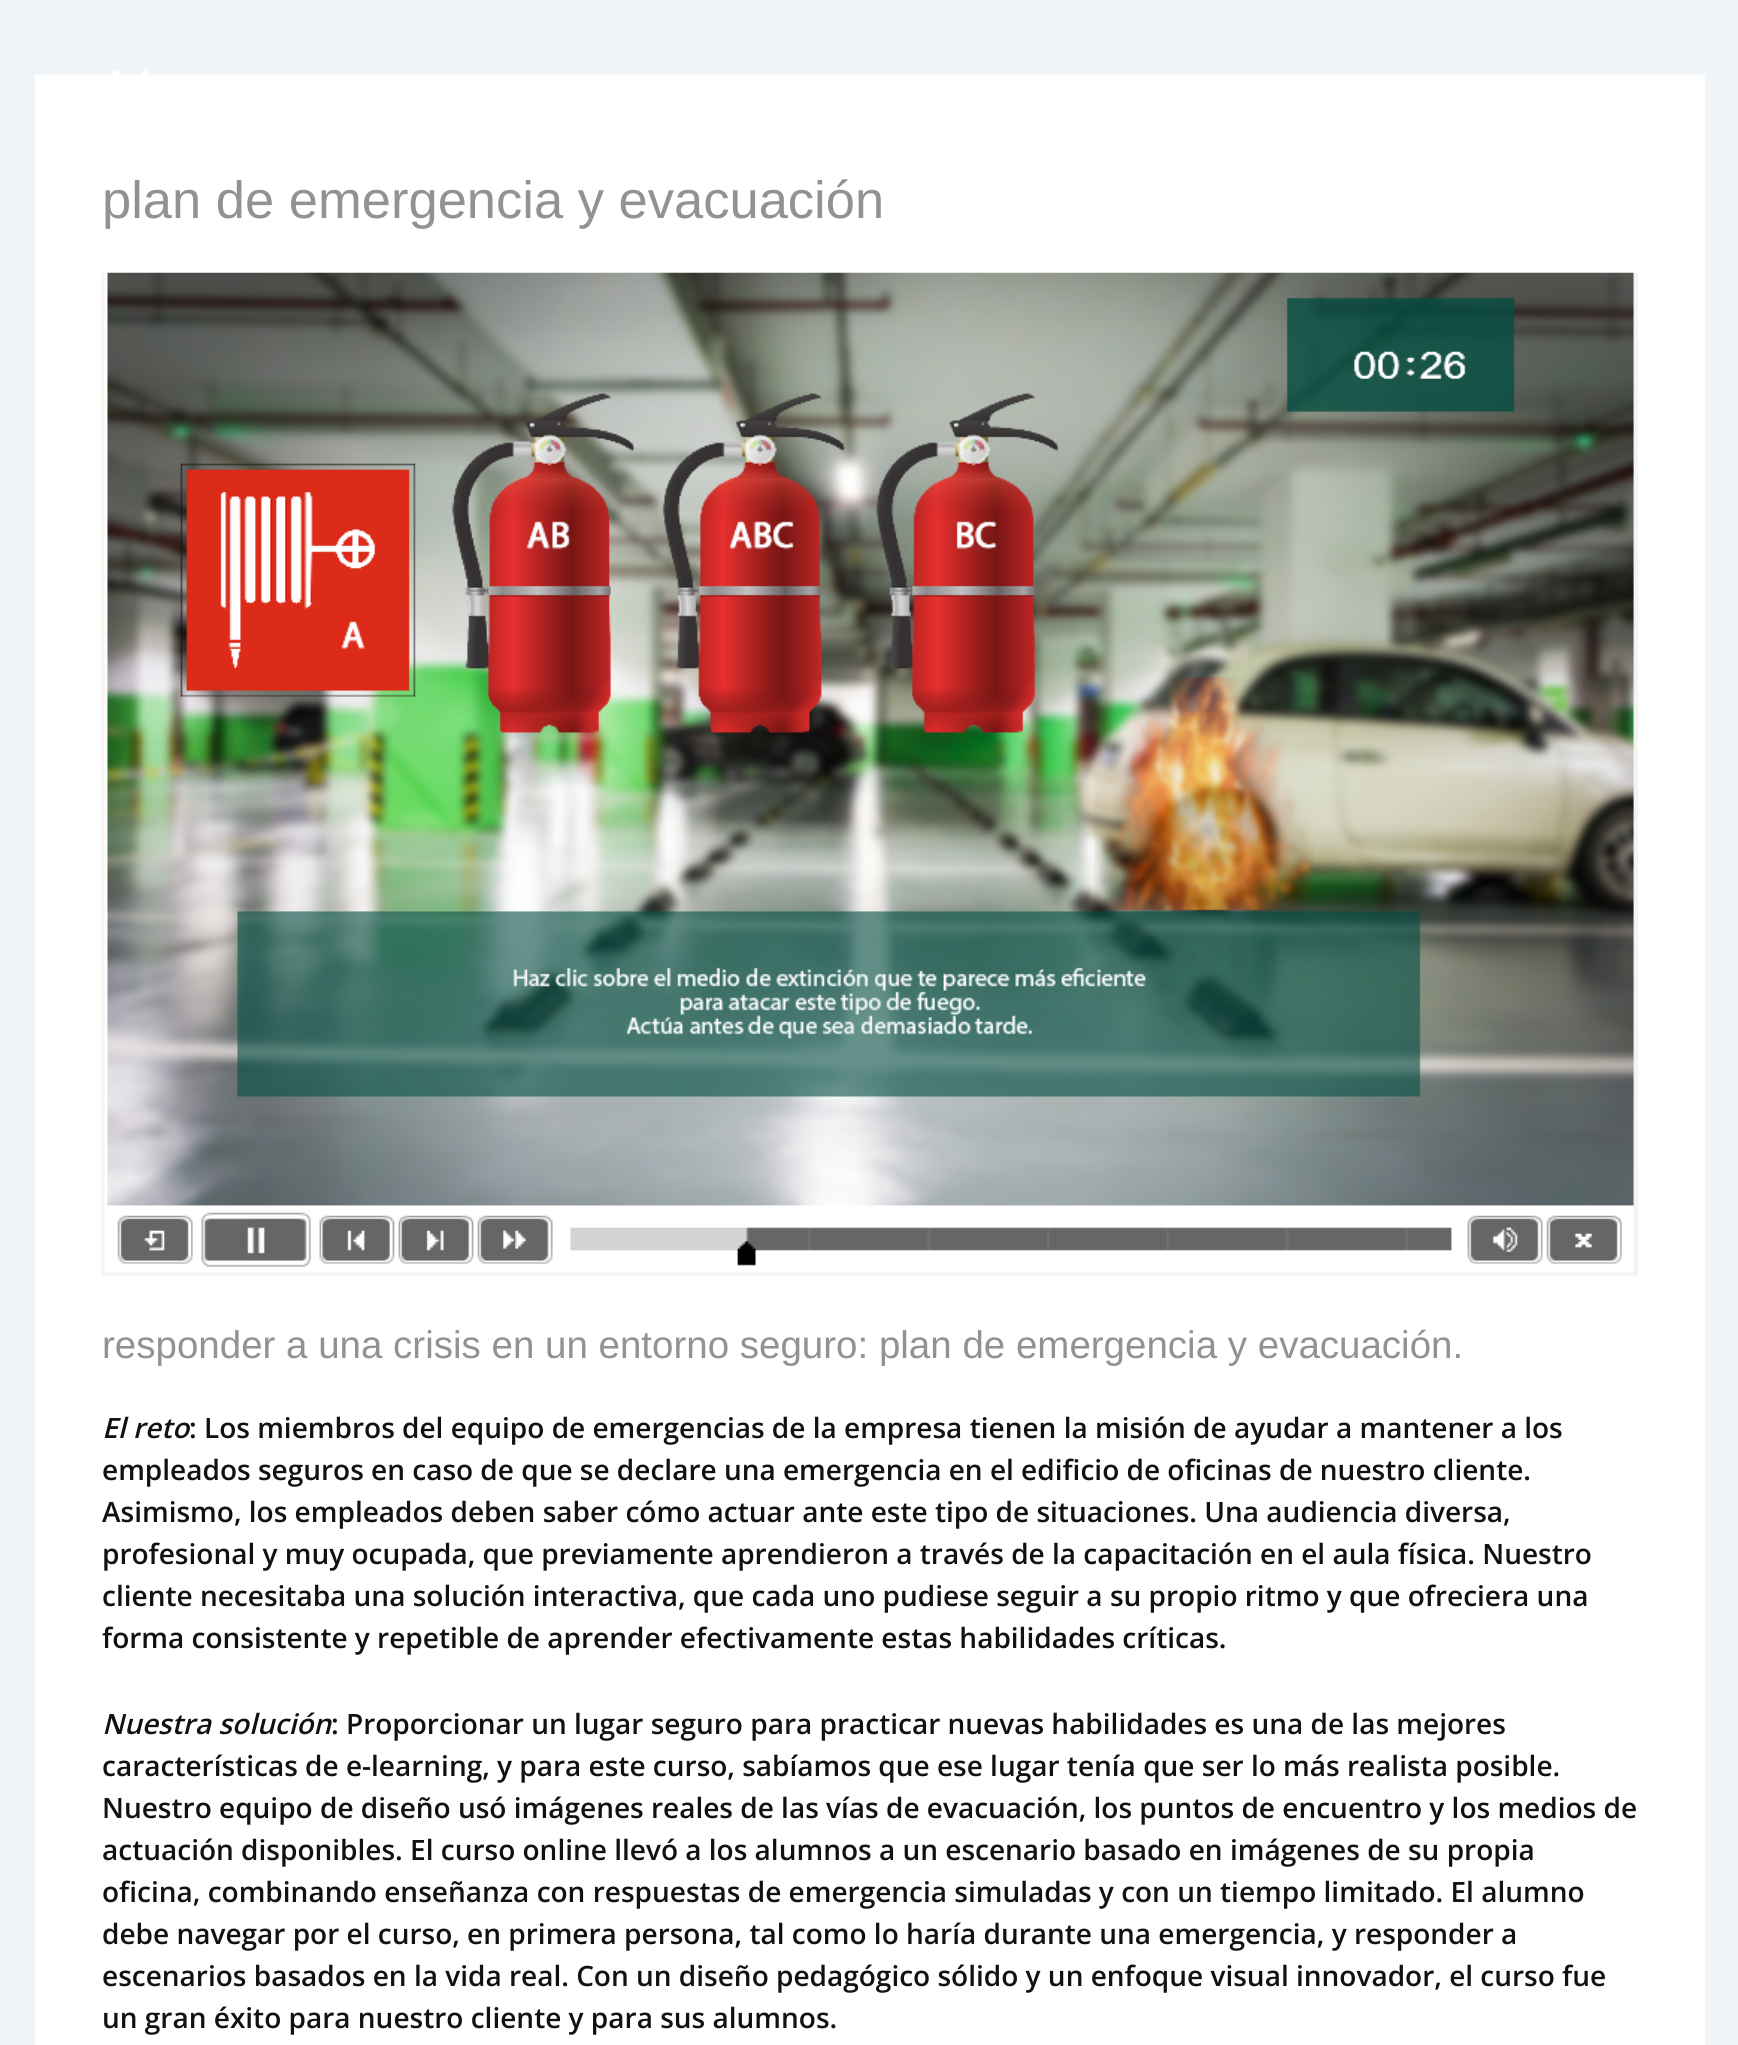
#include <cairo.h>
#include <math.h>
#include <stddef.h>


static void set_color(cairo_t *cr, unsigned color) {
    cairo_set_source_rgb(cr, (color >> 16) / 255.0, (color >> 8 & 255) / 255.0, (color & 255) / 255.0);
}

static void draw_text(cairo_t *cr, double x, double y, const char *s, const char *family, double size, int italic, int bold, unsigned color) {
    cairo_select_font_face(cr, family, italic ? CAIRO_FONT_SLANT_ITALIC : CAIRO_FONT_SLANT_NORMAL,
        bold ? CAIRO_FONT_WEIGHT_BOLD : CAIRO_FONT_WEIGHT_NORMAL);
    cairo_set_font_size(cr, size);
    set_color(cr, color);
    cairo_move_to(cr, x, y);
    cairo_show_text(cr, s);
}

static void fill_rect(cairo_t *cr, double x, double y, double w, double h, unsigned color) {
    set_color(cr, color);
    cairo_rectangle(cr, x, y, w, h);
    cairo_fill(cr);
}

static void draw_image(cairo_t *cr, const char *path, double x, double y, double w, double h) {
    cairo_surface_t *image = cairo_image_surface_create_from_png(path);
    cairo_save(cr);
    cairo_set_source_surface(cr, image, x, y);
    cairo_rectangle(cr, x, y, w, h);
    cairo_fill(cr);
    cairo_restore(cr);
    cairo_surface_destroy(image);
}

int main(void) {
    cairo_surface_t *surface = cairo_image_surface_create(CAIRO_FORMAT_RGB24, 1738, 2045);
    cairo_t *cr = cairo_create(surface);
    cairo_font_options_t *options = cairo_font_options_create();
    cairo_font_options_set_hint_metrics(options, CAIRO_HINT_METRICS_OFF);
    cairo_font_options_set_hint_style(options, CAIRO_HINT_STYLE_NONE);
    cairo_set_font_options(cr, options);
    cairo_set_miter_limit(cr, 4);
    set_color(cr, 0xF0F5FA);
    cairo_paint(cr);
    draw_image(cr, "assets/img1.png", 112, 70, 38, 5);
    fill_rect(cr, 35, 75, 1670, 1970, 0xFFFFFF);
    draw_text(cr, 102, 218, "plan de emergencia y evacuación", "Liberation Sans", 52.5, 0, 0, 0x929195);
    draw_image(cr, "assets/img2.png", 101, 272, 1537, 1004);
    draw_text(cr, 102, 1358, "responder a una crisis en un entorno seguro: plan de emergencia y evacuación.", "Liberation Sans", 38.5, 0, 0, 0x929195);
    draw_text(cr, 102, 1438, "El reto", "Open Sans SemiBold", 28, 1, 0, 0x111111);
    draw_text(cr, 189, 1438, ": Los miembros del equipo de emergencias de la empresa tienen la misión de ayudar a mantener a los", "Open Sans SemiBold", 28, 0, 0, 0x111111);
    draw_text(cr, 102, 1480, "empleados seguros en caso de que se declare una emergencia en el edificio de oficinas de nuestro cliente.", "Open Sans SemiBold", 28, 0, 0, 0x111111);
    draw_text(cr, 102, 1522, "Asimismo, los empleados deben saber cómo actuar ante este tipo de situaciones. Una audiencia diversa,", "Open Sans SemiBold", 28, 0, 0, 0x111111);
    draw_text(cr, 102, 1564, "profesional y muy ocupada, que previamente aprendieron a través de la capacitación en el aula física. Nuestro", "Open Sans SemiBold", 28, 0, 0, 0x111111);
    draw_text(cr, 102, 1606, "cliente necesitaba una solución interactiva, que cada uno pudiese seguir a su propio ritmo y que ofreciera una", "Open Sans SemiBold", 28, 0, 0, 0x111111);
    draw_text(cr, 102, 1648, "forma consistente y repetible de aprender efectivamente estas habilidades críticas.", "Open Sans SemiBold", 28, 0, 0, 0x111111);
    draw_text(cr, 102, 1734, "Nuestra solución", "Open Sans SemiBold", 28, 1, 0, 0x111111);
    draw_text(cr, 331, 1734, ": Proporcionar un lugar seguro para practicar nuevas habilidades es una de las mejores", "Open Sans SemiBold", 28, 0, 0, 0x111111);
    draw_text(cr, 102, 1776, "características de e-learning, y para este curso, sabíamos que ese lugar tenía que ser lo más realista posible.", "Open Sans SemiBold", 28, 0, 0, 0x111111);
    draw_text(cr, 102, 1818, "Nuestro equipo de diseño usó imágenes reales de las vías de evacuación, los puntos de encuentro y los medios de", "Open Sans SemiBold", 28, 0, 0, 0x111111);
    draw_text(cr, 102, 1860, "actuación disponibles. El curso online llevó a los alumnos a un escenario basado en imágenes de su propia", "Open Sans SemiBold", 28, 0, 0, 0x111111);
    draw_text(cr, 102, 1902, "oficina, combinando enseñanza con respuestas de emergencia simuladas y con un tiempo limitado. El alumno", "Open Sans SemiBold", 28, 0, 0, 0x111111);
    draw_text(cr, 102, 1944, "debe navegar por el curso, en primera persona, tal como lo haría durante una emergencia, y responder a", "Open Sans SemiBold", 28, 0, 0, 0x111111);
    draw_text(cr, 102, 1986, "escenarios basados en la vida real. Con un diseño pedagógico sólido y un enfoque visual innovador, el curso fue", "Open Sans SemiBold", 28, 0, 0, 0x111111);
    draw_text(cr, 102, 2028, "un gran éxito para nuestro cliente y para sus alumnos.", "Open Sans SemiBold", 28, 0, 0, 0x111111);
    cairo_surface_write_to_png(surface, "output.png");
    cairo_font_options_destroy(options);
    cairo_destroy(cr);
    cairo_surface_destroy(surface);
    return 0;
}
